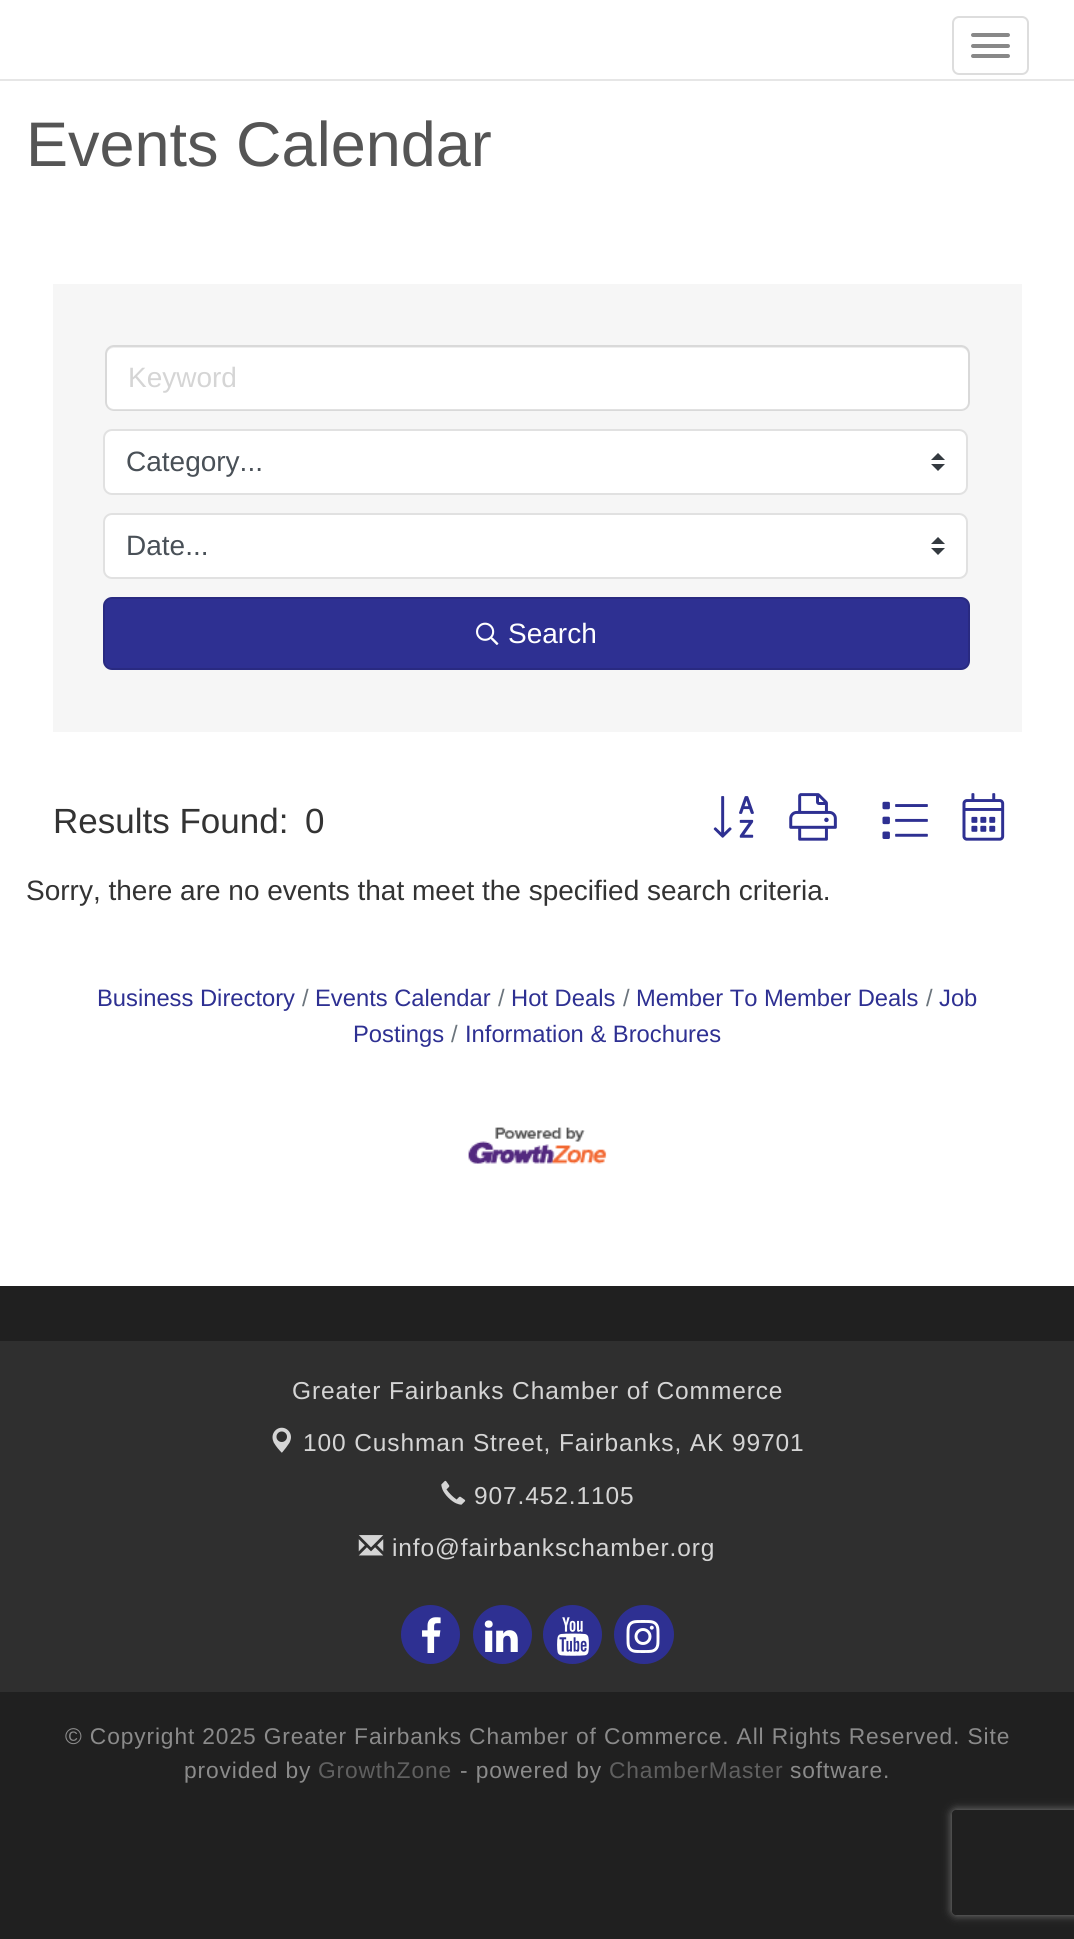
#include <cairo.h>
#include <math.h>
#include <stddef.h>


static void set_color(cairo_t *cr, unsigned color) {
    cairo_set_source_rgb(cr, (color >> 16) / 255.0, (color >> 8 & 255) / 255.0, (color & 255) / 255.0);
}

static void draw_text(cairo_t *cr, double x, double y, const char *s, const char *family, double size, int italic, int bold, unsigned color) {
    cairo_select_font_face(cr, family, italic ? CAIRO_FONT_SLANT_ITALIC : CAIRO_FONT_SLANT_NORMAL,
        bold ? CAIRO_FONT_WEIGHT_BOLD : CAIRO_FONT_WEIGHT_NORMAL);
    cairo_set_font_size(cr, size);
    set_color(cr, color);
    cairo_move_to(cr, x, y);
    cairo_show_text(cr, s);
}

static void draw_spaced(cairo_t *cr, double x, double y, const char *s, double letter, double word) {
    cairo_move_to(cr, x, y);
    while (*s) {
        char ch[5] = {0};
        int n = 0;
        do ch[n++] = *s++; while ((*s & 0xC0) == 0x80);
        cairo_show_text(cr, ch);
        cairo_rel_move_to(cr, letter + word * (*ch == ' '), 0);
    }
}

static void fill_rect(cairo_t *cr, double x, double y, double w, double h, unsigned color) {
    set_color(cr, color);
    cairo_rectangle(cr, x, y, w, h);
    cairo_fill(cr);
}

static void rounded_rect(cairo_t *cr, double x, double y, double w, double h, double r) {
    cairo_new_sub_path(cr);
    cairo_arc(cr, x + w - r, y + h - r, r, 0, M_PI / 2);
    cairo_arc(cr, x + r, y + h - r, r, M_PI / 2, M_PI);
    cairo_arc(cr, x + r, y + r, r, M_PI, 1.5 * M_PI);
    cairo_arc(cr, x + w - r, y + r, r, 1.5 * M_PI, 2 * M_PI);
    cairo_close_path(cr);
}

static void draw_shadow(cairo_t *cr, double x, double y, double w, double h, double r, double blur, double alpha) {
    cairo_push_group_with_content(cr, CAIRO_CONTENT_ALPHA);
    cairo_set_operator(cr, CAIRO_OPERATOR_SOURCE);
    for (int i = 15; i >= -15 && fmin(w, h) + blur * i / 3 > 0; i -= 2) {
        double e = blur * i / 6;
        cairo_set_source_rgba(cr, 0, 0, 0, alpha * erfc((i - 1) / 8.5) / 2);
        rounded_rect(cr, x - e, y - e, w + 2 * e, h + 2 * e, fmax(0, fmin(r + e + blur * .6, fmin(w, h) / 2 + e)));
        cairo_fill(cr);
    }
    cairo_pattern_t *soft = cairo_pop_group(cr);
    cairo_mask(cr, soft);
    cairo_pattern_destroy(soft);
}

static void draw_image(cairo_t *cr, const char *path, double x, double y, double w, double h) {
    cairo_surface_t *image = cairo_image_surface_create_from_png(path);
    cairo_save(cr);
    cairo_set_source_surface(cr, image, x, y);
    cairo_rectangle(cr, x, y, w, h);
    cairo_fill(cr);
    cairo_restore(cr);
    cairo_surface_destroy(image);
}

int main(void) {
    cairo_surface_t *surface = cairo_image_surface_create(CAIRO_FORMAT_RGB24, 1074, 1939);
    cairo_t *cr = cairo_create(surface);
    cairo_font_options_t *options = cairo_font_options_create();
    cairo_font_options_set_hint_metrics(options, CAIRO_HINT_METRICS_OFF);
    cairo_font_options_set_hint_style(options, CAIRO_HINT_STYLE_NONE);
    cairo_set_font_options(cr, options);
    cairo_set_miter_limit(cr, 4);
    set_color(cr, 0x202020);
    cairo_paint(cr);
    fill_rect(cr, 0, 0, 1074, 1286, 0xFFFFFF);
    fill_rect(cr, 0, 79, 1074, 2, 0xE6E6E6);
    rounded_rect(cr, 953, 17, 75, 57, 6);
    set_color(cr, 0xDDDDDD);
    cairo_stroke(cr);
    set_color(cr, 0x888888);
    rounded_rect(cr, 971, 33, 39, 4, 2);
    cairo_fill(cr);
    rounded_rect(cr, 971, 44, 39, 4, 2);
    cairo_fill(cr);
    rounded_rect(cr, 971, 54, 39, 4, 2);
    cairo_fill(cr);
    draw_text(cr, 26, 166, "Events Calendar", "Liberation Sans", 63, 0, 0, 0x555555);
    fill_rect(cr, 53, 284, 969, 448, 0xF6F6F6);
    set_color(cr, 0xFFFFFF);
    rounded_rect(cr, 107, 347, 861, 63, 7);
    cairo_fill(cr);
    cairo_set_source_rgba(cr, 0, 0, 0, 0.07);
    cairo_new_path(cr);
    cairo_move_to(cr, 114, 348);
    cairo_line_to(cr, 961, 348);
    cairo_curve_to(cr, 965, 348, 968, 351, 968, 355);
    cairo_line_to(cr, 968, 354);
    cairo_curve_to(cr, 968, 350, 965, 347, 961, 347);
    cairo_line_to(cr, 114, 347);
    cairo_curve_to(cr, 110, 347, 107, 350, 107, 354);
    cairo_line_to(cr, 107, 355);
    cairo_curve_to(cr, 107, 351, 110, 348, 114, 348);
    cairo_close_path(cr);
    cairo_fill(cr);
    rounded_rect(cr, 106, 346, 863, 64, 8);
    cairo_set_source_rgba(cr, 0, 0, 0, 0.12);
    cairo_stroke(cr);
    draw_text(cr, 128, 387, "Keyword", "Liberation Sans", 28, 0, 0, 0xD5D5D5);
    set_color(cr, 0xFFFFFF);
    rounded_rect(cr, 103, 429, 865, 66, 9);
    cairo_fill(cr);
    set_color(cr, 0x343A40);
    cairo_new_path(cr);
    cairo_move_to(cr, 938, 453);
    cairo_line_to(cr, 931, 460);
    cairo_line_to(cr, 945, 460);
    cairo_close_path(cr);
    cairo_move_to(cr, 938, 471);
    cairo_line_to(cr, 931, 464);
    cairo_line_to(cr, 945, 464);
    cairo_close_path(cr);
    cairo_fill(cr);
    rounded_rect(cr, 104, 430, 863, 64, 8);
    cairo_set_source_rgba(cr, 0, 0, 0, 0.12);
    cairo_stroke(cr);
    draw_text(cr, 126, 471, "Category...", "Liberation Sans", 28, 0, 0, 0x495057);
    set_color(cr, 0xFFFFFF);
    rounded_rect(cr, 103, 513, 865, 66, 9);
    cairo_fill(cr);
    set_color(cr, 0x343A40);
    cairo_new_path(cr);
    cairo_move_to(cr, 938, 537);
    cairo_line_to(cr, 931, 544);
    cairo_line_to(cr, 945, 544);
    cairo_close_path(cr);
    cairo_move_to(cr, 938, 555);
    cairo_line_to(cr, 931, 548);
    cairo_line_to(cr, 945, 548);
    cairo_close_path(cr);
    cairo_fill(cr);
    rounded_rect(cr, 104, 514, 863, 64, 8);
    cairo_set_source_rgba(cr, 0, 0, 0, 0.12);
    cairo_stroke(cr);
    draw_text(cr, 126, 555, "Date...", "Liberation Sans", 28, 0, 0, 0x495057);
    set_color(cr, 0x2E3092);
    rounded_rect(cr, 103, 597, 867, 73, 9);
    cairo_fill(cr);
    rounded_rect(cr, 104, 598, 865, 71, 8);
    cairo_set_source_rgba(cr, 0, 0, 0, 0.12);
    cairo_stroke(cr);
    draw_image(cr, "assets/img1.png", 476, 622, 23, 23);
    draw_text(cr, 508, 643, "Search", "Liberation Sans", 28, 0, 0, 0xFFFFFF);
    draw_text(cr, 53, 833, "Results Found:", "Liberation Sans", 35, 0, 0, 0x333333);
    draw_text(cr, 305, 833, "0", "Liberation Sans", 35, 0, 0, 0x333333);
    draw_image(cr, "assets/img2.png", 713, 796, 41, 42);
    draw_image(cr, "assets/img3.png", 789, 793, 48, 48);
    draw_image(cr, "assets/img4.png", 882, 801, 46, 38);
    draw_image(cr, "assets/img5.png", 962, 793, 43, 48);
    draw_text(cr, 26, 900, "Sorry, there are no events that meet the specified search criteria.", "Liberation Sans", 28, 0, 0, 0x333333);
    draw_text(cr, 97, 1006, "Business Directory", "Liberation Sans", 23.75, 0, 0, 0x2E3092);
    draw_text(cr, 302, 1006, "/", "Liberation Sans", 23.75, 0, 0, 0x6C757D);
    draw_text(cr, 315, 1006, "Events Calendar", "Liberation Sans", 23.75, 0, 0, 0x2E3092);
    draw_text(cr, 926, 1006, "/", "Liberation Sans", 23.75, 0, 0, 0x6C757D);
    draw_text(cr, 939, 1006, "Job", "Liberation Sans", 23.75, 0, 0, 0x2E3092);
    draw_text(cr, 353, 1042, "Postings", "Liberation Sans", 23.75, 0, 0, 0x2E3092);
    draw_text(cr, 498, 1006, "/", "Liberation Sans", 23.75, 0, 0, 0x6C757D);
    draw_text(cr, 511, 1006, "Hot Deals", "Liberation Sans", 23.75, 0, 0, 0x2E3092);
    draw_text(cr, 623, 1006, "/", "Liberation Sans", 23.75, 0, 0, 0x6C757D);
    draw_text(cr, 636, 1006, "Member To Member Deals", "Liberation Sans", 23.75, 0, 0, 0x2E3092);
    draw_text(cr, 451, 1042, "/", "Liberation Sans", 23.75, 0, 0, 0x6C757D);
    draw_text(cr, 465, 1042, "Information & Brochures", "Liberation Sans", 23.75, 0, 0, 0x2E3092);
    draw_image(cr, "assets/img6.png", 468, 1127, 139, 37);
    fill_rect(cr, 0, 1341, 1074, 351, 0x2F2F2F);
    cairo_set_font_size(cr, 24.5);
    set_color(cr, 0xD5D5D5);
    draw_spaced(cr, 292, 1399, "Greater Fairbanks Chamber of Commerce", 0.88, 0);
    draw_image(cr, "assets/img7.png", 272, 1427, 19, 26);
    draw_spaced(cr, 303, 1451, "100 Cushman Street, Fairbanks, AK 99701", 0.88, 0);
    draw_image(cr, "assets/img8.png", 441, 1480, 25, 25);
    draw_spaced(cr, 474, 1504, "907.452.1105", 0.88, 0);
    draw_image(cr, "assets/img9.png", 358, 1535, 26, 21);
    draw_spaced(cr, 392, 1556, "info@fairbankschamber.org", 0.88, 0);
    set_color(cr, 0x2E3092);
    cairo_new_path(cr);
    cairo_arc(cr, 430.5, 1634.5, 28.5, 0, 2 * M_PI);
    cairo_fill_preserve(cr);
    cairo_stroke(cr);
    draw_image(cr, "assets/img10.png", 422, 1617, 19, 36);
    cairo_arc(cr, 502.5, 1634.5, 28.5, 0, 2 * M_PI);
    cairo_fill_preserve(cr);
    cairo_stroke(cr);
    draw_image(cr, "assets/img11.png", 484, 1620, 34, 32);
    cairo_arc(cr, 572.5, 1634.5, 28.5, 0, 2 * M_PI);
    cairo_fill_preserve(cr);
    cairo_stroke(cr);
    draw_image(cr, "assets/img12.png", 557, 1617, 32, 39);
    rounded_rect(cr, 615, 1606, 58, 57, 28.5);
    cairo_fill_preserve(cr);
    cairo_stroke(cr);
    draw_image(cr, "assets/img13.png", 626, 1620, 34, 33);
    cairo_set_font_size(cr, 22.75);
    set_color(cr, 0x8B8B8B);
    draw_spaced(cr, 65, 1744, "© Copyright 2025 Greater Fairbanks Chamber of Commerce. All Rights Reserved. Site", 0.88, 0);
    draw_spaced(cr, 184, 1778, "provided by", 0.88, 0);
    set_color(cr, 0x606060);
    draw_spaced(cr, 318, 1778, "GrowthZone", 0.88, 0);
    set_color(cr, 0x8B8B8B);
    draw_spaced(cr, 460, 1778, "- powered by", 0.88, 0);
    set_color(cr, 0x606060);
    draw_spaced(cr, 609, 1778, "ChamberMaster", 0.88, 0);
    set_color(cr, 0x8B8B8B);
    draw_spaced(cr, 790, 1778, "software.", 0.88, 0);
    cairo_save(cr);
    cairo_set_fill_rule(cr, CAIRO_FILL_RULE_EVEN_ODD);
    cairo_new_path(cr);
    cairo_move_to(cr, 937, 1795);
    cairo_line_to(cr, 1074, 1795);
    cairo_line_to(cr, 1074, 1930);
    cairo_line_to(cr, 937, 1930);
    cairo_close_path(cr);
    cairo_move_to(cr, 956, 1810);
    cairo_line_to(cr, 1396, 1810);
    cairo_curve_to(cr, 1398, 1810, 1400, 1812, 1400, 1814);
    cairo_line_to(cr, 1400, 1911);
    cairo_curve_to(cr, 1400, 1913, 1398, 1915, 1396, 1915);
    cairo_line_to(cr, 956, 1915);
    cairo_curve_to(cr, 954, 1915, 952, 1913, 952, 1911);
    cairo_line_to(cr, 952, 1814);
    cairo_curve_to(cr, 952, 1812, 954, 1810, 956, 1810);
    cairo_close_path(cr);
    cairo_clip(cr);
    set_color(cr, 0x808080);
    draw_shadow(cr, 952, 1810, 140, 105, 4, 4.5, 1);
    cairo_restore(cr);
    cairo_surface_write_to_png(surface, "output.png");
    cairo_font_options_destroy(options);
    cairo_destroy(cr);
    cairo_surface_destroy(surface);
    return 0;
}
